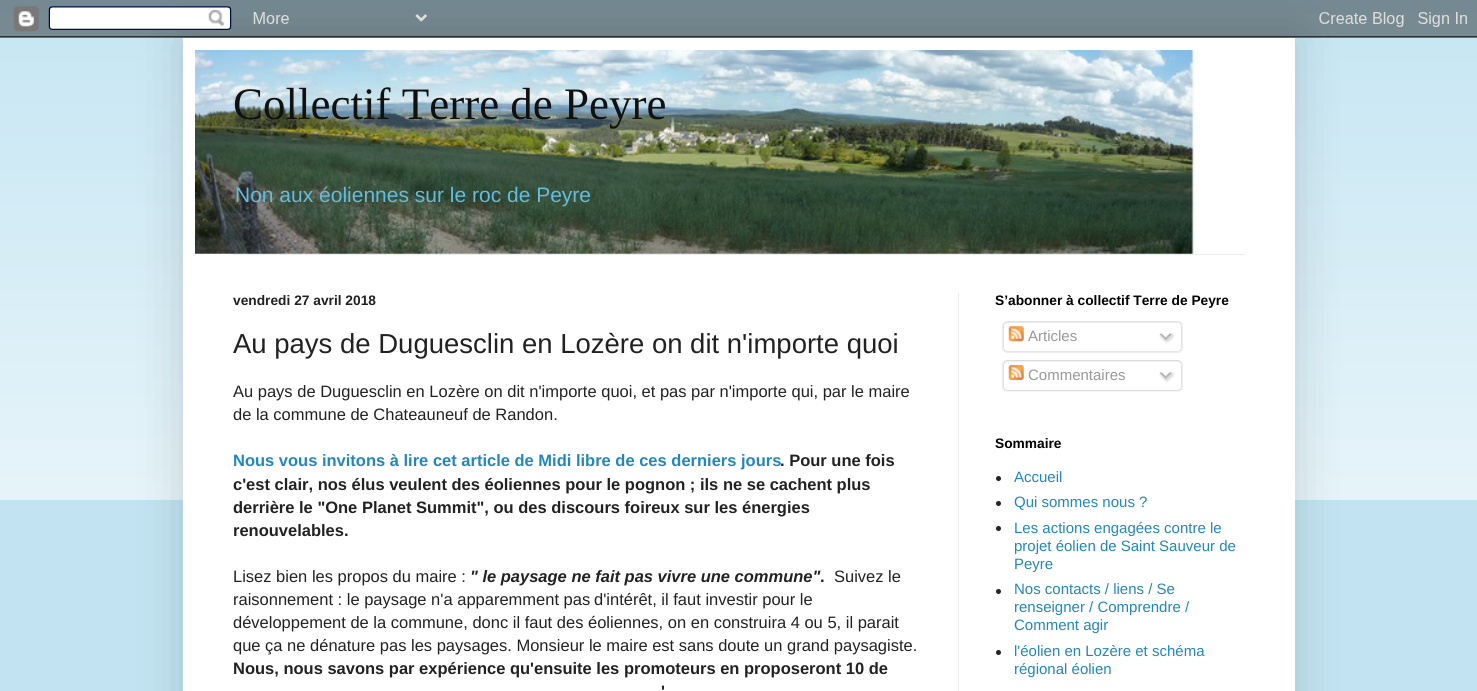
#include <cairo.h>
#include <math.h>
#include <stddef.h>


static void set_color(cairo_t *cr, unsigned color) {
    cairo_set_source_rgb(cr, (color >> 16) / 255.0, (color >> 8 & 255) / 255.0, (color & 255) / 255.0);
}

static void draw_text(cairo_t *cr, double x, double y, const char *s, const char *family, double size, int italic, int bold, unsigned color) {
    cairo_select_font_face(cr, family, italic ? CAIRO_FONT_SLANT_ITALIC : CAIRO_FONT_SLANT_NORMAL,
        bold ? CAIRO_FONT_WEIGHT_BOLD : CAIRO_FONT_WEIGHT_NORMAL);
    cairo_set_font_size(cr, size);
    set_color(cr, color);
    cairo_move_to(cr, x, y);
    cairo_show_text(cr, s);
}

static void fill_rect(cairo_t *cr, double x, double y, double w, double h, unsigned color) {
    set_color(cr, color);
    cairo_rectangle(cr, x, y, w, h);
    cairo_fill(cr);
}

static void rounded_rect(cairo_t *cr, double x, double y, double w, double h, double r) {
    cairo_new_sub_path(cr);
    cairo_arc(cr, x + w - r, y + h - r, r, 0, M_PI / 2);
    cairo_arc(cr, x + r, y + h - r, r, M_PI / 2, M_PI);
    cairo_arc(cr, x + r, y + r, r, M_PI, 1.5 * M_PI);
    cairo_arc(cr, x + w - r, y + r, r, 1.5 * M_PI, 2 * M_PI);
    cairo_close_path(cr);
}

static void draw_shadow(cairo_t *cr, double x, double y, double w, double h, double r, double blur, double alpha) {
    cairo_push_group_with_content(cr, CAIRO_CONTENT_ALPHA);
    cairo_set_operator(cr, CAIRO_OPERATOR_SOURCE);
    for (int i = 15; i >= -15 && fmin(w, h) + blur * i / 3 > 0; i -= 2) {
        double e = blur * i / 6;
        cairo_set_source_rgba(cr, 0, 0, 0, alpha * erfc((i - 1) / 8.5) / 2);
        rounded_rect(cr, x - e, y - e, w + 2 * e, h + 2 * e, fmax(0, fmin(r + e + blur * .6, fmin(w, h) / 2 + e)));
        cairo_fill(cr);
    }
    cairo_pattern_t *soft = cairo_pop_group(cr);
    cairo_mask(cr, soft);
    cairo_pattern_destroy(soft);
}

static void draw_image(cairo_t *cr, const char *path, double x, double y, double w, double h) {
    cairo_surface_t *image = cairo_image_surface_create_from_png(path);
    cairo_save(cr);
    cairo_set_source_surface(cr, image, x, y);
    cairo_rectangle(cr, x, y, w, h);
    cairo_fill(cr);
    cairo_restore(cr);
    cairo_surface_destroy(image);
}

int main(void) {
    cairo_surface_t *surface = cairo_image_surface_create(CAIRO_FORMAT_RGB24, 1477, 691);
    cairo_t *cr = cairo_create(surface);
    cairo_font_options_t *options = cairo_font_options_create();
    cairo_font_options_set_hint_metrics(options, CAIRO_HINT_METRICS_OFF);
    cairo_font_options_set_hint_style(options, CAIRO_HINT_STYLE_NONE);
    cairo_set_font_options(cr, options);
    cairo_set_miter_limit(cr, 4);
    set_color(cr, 0xC2E4F2);
    cairo_paint(cr);
    draw_image(cr, "assets/img2.png", 0, 13, 1477, 487);
    set_color(cr, 0x000000);
    draw_shadow(cr, 183, 38, 1112, 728, 0, 25, 0.15);
    draw_image(cr, "assets/img1.png", 0, 0, 1477, 38);
    fill_rect(cr, 183, 38, 1112, 653, 0xFFFFFF);
    draw_image(cr, "assets/img3.png", 195, 50, 1000, 204);
    draw_text(cr, 233, 119, "Collectif Terre de Peyre", "Liberation Serif", 45, 0, 0, 0x111111);
    draw_text(cr, 235, 202, "Non aux éoliennes sur le roc de Peyre", "Liberation Sans", 21, 0, 0, 0x66BBDD);
    fill_rect(cr, 233, 254, 1012, 1, 0xEEEEEE);
    fill_rect(cr, 958, 293, 1, 398, 0xEEEEEE);
    draw_text(cr, 233, 305, "vendredi 27 avril 2018", "Liberation Sans", 13.75, 0, 1, 0x222222);
    draw_text(cr, 233, 353, "Au pays de Duguesclin en Lozère on dit n'importe quoi", "Liberation Sans", 27.5, 0, 0, 0x222222);
    draw_text(cr, 233, 397, "Au pays de Duguesclin en Lozère on dit n'importe quoi, et pas par n'importe qui, par le maire", "Liberation Sans", 16.5, 0, 0, 0x222222);
    draw_text(cr, 233, 420, "de la commune de Chateauneuf de Randon.", "Liberation Sans", 16.5, 0, 0, 0x222222);
    draw_text(cr, 233, 466, "Nous vous invitons à lire cet article de Midi libre de ces derniers jours", "Liberation Sans", 16.5, 0, 1, 0x2288BB);
    draw_text(cr, 780, 466, ". Pour une fois", "Liberation Sans", 16.5, 0, 1, 0x222222);
    draw_text(cr, 233, 490, "c'est clair, nos élus veulent des éoliennes pour le pognon ; ils ne se cachent plus", "Liberation Sans", 16.5, 0, 1, 0x222222);
    draw_text(cr, 233, 513, "derrière le \"One Planet Summit\", ou des discours foireux sur les énergies", "Liberation Sans", 16.5, 0, 1, 0x222222);
    draw_text(cr, 233, 536, "renouvelables.", "Liberation Sans", 16.5, 0, 1, 0x222222);
    draw_text(cr, 233, 582, "Lisez bien les propos du maire :", "Liberation Sans", 16.5, 0, 0, 0x222222);
    draw_text(cr, 470, 582, "\" le paysage ne fait pas vivre une commune\"", "Liberation Sans", 16.5, 1, 1, 0x222222);
    draw_text(cr, 820, 582, ".", "Liberation Sans", 16.5, 0, 1, 0x222222);
    draw_text(cr, 834, 582, "Suivez le", "Liberation Sans", 16.5, 0, 0, 0x222222);
    draw_text(cr, 233, 605, "raisonnement : le paysage n'a apparemment pas", "Liberation Sans", 16.5, 0, 0, 0x222222);
    draw_text(cr, 594, 605, "d'intérêt, il faut investir pour le", "Liberation Sans", 16.5, 0, 0, 0x222222);
    draw_text(cr, 233, 628, "développement de la commune, donc il faut des éoliennes, on en construira 4 ou 5, il parait", "Liberation Sans", 16.5, 0, 0, 0x222222);
    draw_text(cr, 233, 651, "que ça ne dénature pas les paysages. Monsieur le maire est sans doute un grand paysagiste.", "Liberation Sans", 16.5, 0, 0, 0x222222);
    draw_text(cr, 233, 674, "Nous, nous savons par expérience qu'ensuite les promoteurs en proposeront 10 de", "Liberation Sans", 16.5, 0, 1, 0x222222);
    draw_text(cr, 661, 697, "'", "Liberation Sans", 16.5, 0, 1, 0x222222);
    draw_text(cr, 995, 305, "S’abonner à collectif Terre de Peyre", "Liberation Sans", 13.75, 0, 1, 0x000000);
    draw_image(cr, "assets/img4.png", 1002, 321, 181, 28);
    draw_image(cr, "assets/img5.png", 1008, 326, 16, 16);
    draw_text(cr, 1028, 341, "Articles", "Liberation Sans", 15, 0, 0, 0x999999);
    draw_image(cr, "assets/img6.png", 1159, 333, 16, 11);
    draw_image(cr, "assets/img7.png", 1002, 349, 181, 4);
    draw_image(cr, "assets/img8.png", 1002, 360, 181, 28);
    draw_image(cr, "assets/img9.png", 1008, 365, 16, 15);
    draw_text(cr, 1028, 380, "Commentaires", "Liberation Sans", 15, 0, 0, 0x999999);
    draw_image(cr, "assets/img10.png", 1159, 371, 16, 12);
    draw_image(cr, "assets/img11.png", 1002, 387, 181, 5);
    draw_text(cr, 995, 448, "Sommaire", "Liberation Sans", 13.75, 0, 1, 0x000000);
    set_color(cr, 0x222222);
    cairo_new_path(cr);
    cairo_arc(cr, 998.5, 478.5, 2.5, 0, 2 * M_PI);
    cairo_fill(cr);
    draw_text(cr, 1014, 482, "Accueil", "Liberation Sans", 15, 0, 0, 0x2288BB);
    set_color(cr, 0x222222);
    cairo_new_path(cr);
    cairo_arc(cr, 998.5, 503.5, 2.5, 0, 2 * M_PI);
    cairo_fill(cr);
    draw_text(cr, 1014, 507, "Qui sommes nous ?", "Liberation Sans", 15, 0, 0, 0x2288BB);
    set_color(cr, 0x222222);
    cairo_new_path(cr);
    cairo_arc(cr, 998.5, 528.5, 2.5, 0, 2 * M_PI);
    cairo_fill(cr);
    draw_text(cr, 1014, 533, "Les actions engagées contre le", "Liberation Sans", 15, 0, 0, 0x2288BB);
    draw_text(cr, 1014, 551, "projet éolien de Saint Sauveur de", "Liberation Sans", 15, 0, 0, 0x2288BB);
    draw_text(cr, 1014, 569, "Peyre", "Liberation Sans", 15, 0, 0, 0x2288BB);
    set_color(cr, 0x222222);
    cairo_new_path(cr);
    cairo_arc(cr, 998.5, 591.5, 2.5, 0, 2 * M_PI);
    cairo_fill(cr);
    draw_text(cr, 1014, 594, "Nos contacts / liens / Se", "Liberation Sans", 15, 0, 0, 0x2288BB);
    draw_text(cr, 1014, 612, "renseigner / Comprendre /", "Liberation Sans", 15, 0, 0, 0x2288BB);
    draw_text(cr, 1014, 630, "Comment agir", "Liberation Sans", 15, 0, 0, 0x2288BB);
    set_color(cr, 0x222222);
    cairo_new_path(cr);
    cairo_arc(cr, 998.5, 652.5, 2.5, 0, 2 * M_PI);
    cairo_fill(cr);
    draw_text(cr, 1014, 656, "l'éolien en Lozère et schéma", "Liberation Sans", 15, 0, 0, 0x2288BB);
    draw_text(cr, 1014, 674, "régional éolien", "Liberation Sans", 15, 0, 0, 0x2288BB);
    cairo_surface_write_to_png(surface, "output.png");
    cairo_font_options_destroy(options);
    cairo_destroy(cr);
    cairo_surface_destroy(surface);
    return 0;
}
